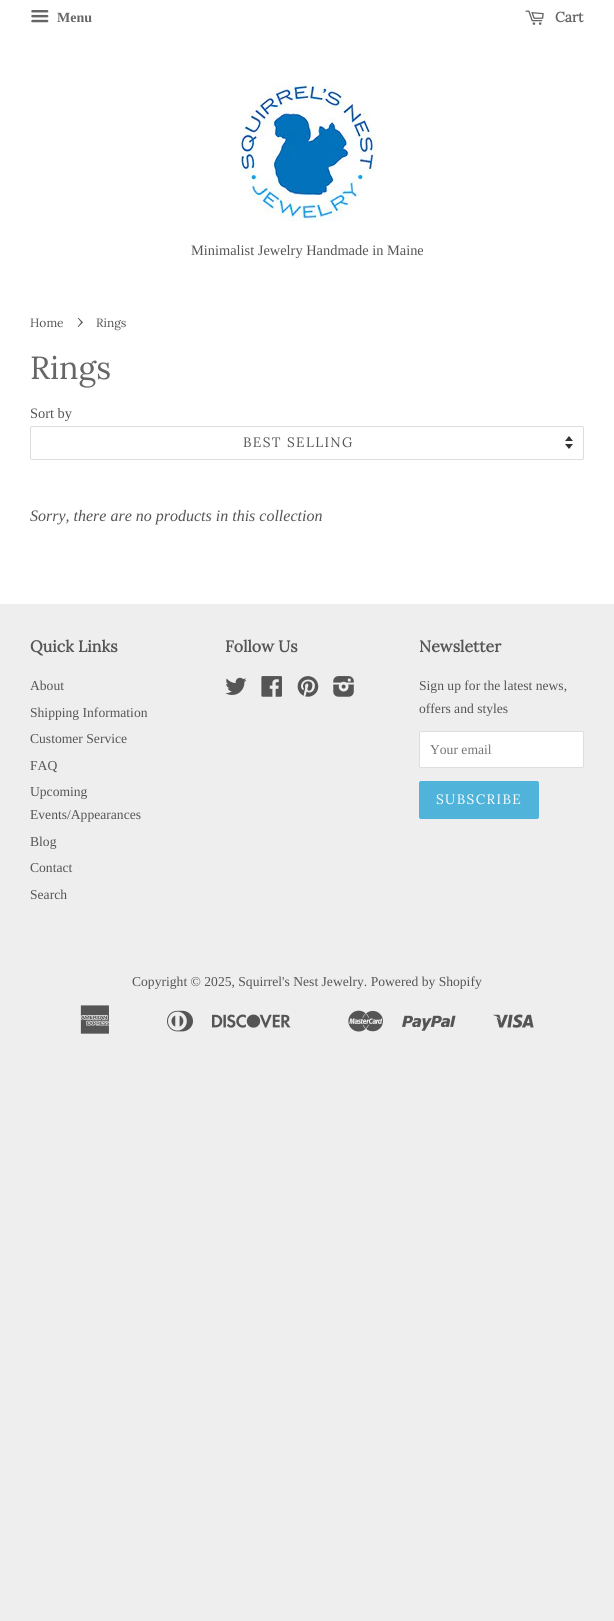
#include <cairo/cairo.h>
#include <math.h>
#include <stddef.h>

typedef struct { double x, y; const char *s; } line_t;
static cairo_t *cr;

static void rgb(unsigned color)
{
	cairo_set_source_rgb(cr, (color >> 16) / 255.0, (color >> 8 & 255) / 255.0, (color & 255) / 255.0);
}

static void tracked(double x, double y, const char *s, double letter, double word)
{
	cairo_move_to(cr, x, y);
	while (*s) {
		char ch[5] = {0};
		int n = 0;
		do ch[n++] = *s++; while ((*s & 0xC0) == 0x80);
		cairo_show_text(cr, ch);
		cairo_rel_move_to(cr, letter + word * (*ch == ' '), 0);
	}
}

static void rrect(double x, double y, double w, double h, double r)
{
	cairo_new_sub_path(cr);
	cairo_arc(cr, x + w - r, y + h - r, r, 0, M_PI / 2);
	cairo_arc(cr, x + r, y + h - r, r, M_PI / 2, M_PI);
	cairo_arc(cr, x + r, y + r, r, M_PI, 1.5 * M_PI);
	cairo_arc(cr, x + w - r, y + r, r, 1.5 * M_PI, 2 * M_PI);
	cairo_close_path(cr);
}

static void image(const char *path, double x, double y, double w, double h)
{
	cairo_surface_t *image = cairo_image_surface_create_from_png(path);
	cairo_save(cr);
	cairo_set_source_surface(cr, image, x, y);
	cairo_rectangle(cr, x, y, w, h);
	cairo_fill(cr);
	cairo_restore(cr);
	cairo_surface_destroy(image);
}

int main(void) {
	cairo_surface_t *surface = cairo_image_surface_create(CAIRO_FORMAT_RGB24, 614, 1621);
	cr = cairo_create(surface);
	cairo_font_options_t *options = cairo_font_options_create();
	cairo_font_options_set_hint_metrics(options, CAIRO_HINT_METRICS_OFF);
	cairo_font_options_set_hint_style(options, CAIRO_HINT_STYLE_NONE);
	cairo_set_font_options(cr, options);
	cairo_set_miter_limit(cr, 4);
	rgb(0xeeeeee);
	cairo_paint(cr);
	rgb(0xffffff);
	cairo_rectangle(cr, 0, 0, 614, 604);
	cairo_fill(cr);
	image("img/1.png", 31, 10, 18, 13);
	image("img/2.png", 525, 10, 19, 15);
	image("img/3.png", 240, 84, 136, 137);
	image("img/4.png", 565, 436, 8, 13);
	rrect(30.5, 426.5, 553, 33, 1.5);
	rgb(0xdddddd);
	cairo_set_line_width(cr, 1);
	cairo_stroke(cr);
	image("img/5.png", 225, 677, 22, 18);
	image("img/6.png", 261, 676, 21, 21);
	image("img/7.png", 297, 676, 22, 21);
	image("img/8.png", 333, 676, 21, 21);
	rgb(0xffffff);
	rrect(419.5, 731.5, 164, 36, 1.5);
	cairo_fill_preserve(cr);
	rgb(0xdddddd);
	cairo_stroke(cr);
	rgb(0x50b3da);
	rrect(419, 781, 120, 38, 2);
	cairo_fill(cr);
	image("img/9.png", 80, 1005, 30, 29);
	image("img/10.png", 167, 1010, 26, 22);
	image("img/11.png", 212, 1014, 79, 14);
	image("img/12.png", 348, 1010, 35, 22);
	image("img/13.png", 402, 1015, 54, 16);
	image("img/14.png", 493, 1014, 41, 14);
	cairo_select_font_face(cr, "Liberation Serif", CAIRO_FONT_SLANT_NORMAL, CAIRO_FONT_WEIGHT_BOLD);
	cairo_set_font_size(cr, 14);
	rgb(0x666666);
	cairo_move_to(cr, 57, 22);
	cairo_show_text(cr, "Menu");
	cairo_select_font_face(cr, "Lora", CAIRO_FONT_SLANT_NORMAL, CAIRO_FONT_WEIGHT_BOLD);
	cairo_move_to(cr, 555, 22);
	cairo_show_text(cr, "Cart");
	cairo_select_font_face(cr, "Liberation Serif", CAIRO_FONT_SLANT_NORMAL, CAIRO_FONT_WEIGHT_NORMAL);
	cairo_set_font_size(cr, 14.4);
	rgb(0x555555);
	cairo_move_to(cr, 191, 255);
	cairo_show_text(cr, "Minimalist Jewelry Handmade in Maine");
	cairo_select_font_face(cr, "Lora", CAIRO_FONT_SLANT_NORMAL, CAIRO_FONT_WEIGHT_NORMAL);
	cairo_set_font_size(cr, 12);
	cairo_move_to(cr, 30, 327);
	cairo_show_text(cr, "Home");
	cairo_set_font_size(cr, 17);
	cairo_move_to(cr, 77, 327);
	cairo_show_text(cr, "›");
	cairo_set_font_size(cr, 12);
	cairo_move_to(cr, 96, 327);
	cairo_show_text(cr, "Rings");
	cairo_set_font_size(cr, 32);
	rgb(0x666666);
	cairo_move_to(cr, 30, 379);
	cairo_show_text(cr, "Rings");
	cairo_select_font_face(cr, "Liberation Serif", CAIRO_FONT_SLANT_NORMAL, CAIRO_FONT_WEIGHT_NORMAL);
	cairo_set_font_size(cr, 14.4);
	rgb(0x555555);
	cairo_move_to(cr, 30, 418);
	cairo_show_text(cr, "Sort by");
	cairo_select_font_face(cr, "Lora", CAIRO_FONT_SLANT_NORMAL, CAIRO_FONT_WEIGHT_NORMAL);
	cairo_set_font_size(cr, 13.6);
	tracked(243, 447, "BEST SELLING", 1.4, 0);
	cairo_select_font_face(cr, "Liberation Serif", CAIRO_FONT_SLANT_ITALIC, CAIRO_FONT_WEIGHT_NORMAL);
	cairo_set_font_size(cr, 16);
	cairo_move_to(cr, 30, 521);
	cairo_show_text(cr, "Sorry, there are no products in this collection");
	cairo_select_font_face(cr, "Lora", CAIRO_FONT_SLANT_NORMAL, CAIRO_FONT_WEIGHT_BOLD);
	cairo_move_to(cr, 30, 652);
	cairo_show_text(cr, "Quick Links");
	cairo_select_font_face(cr, "Liberation Serif", CAIRO_FONT_SLANT_NORMAL, CAIRO_FONT_WEIGHT_NORMAL);
	cairo_set_font_size(cr, 13.6);
	{
		static const line_t items[] = {
			{30, 690, "About"},
			{30, 717, "Shipping Information"},
			{30, 743, "Customer Service"},
			{30, 770, "FAQ"},
			{30, 796, "Upcoming"},
			{30, 819, "Events/Appearances"},
			{30, 846, "Blog"},
			{30, 872, "Contact"},
			{30, 899, "Search"},
		};
		for (size_t i = 0; i < sizeof items / sizeof *items; i++) {
			cairo_move_to(cr, items[i].x, items[i].y);
			cairo_show_text(cr, items[i].s);
		}
	}
	cairo_select_font_face(cr, "Lora", CAIRO_FONT_SLANT_NORMAL, CAIRO_FONT_WEIGHT_BOLD);
	cairo_set_font_size(cr, 16);
	cairo_move_to(cr, 225, 652);
	cairo_show_text(cr, "Follow Us");
	cairo_move_to(cr, 419, 652);
	cairo_show_text(cr, "Newsletter");
	cairo_select_font_face(cr, "Liberation Serif", CAIRO_FONT_SLANT_NORMAL, CAIRO_FONT_WEIGHT_NORMAL);
	cairo_set_font_size(cr, 13.6);
	cairo_move_to(cr, 419, 690);
	cairo_show_text(cr, "Sign up for the latest news,");
	cairo_move_to(cr, 419, 713);
	cairo_show_text(cr, "offers and styles");
	rgb(0x757575);
	cairo_move_to(cr, 430, 754);
	cairo_show_text(cr, "Your email");
	cairo_select_font_face(cr, "Lora", CAIRO_FONT_SLANT_NORMAL, CAIRO_FONT_WEIGHT_NORMAL);
	rgb(0xffffff);
	tracked(436, 804, "SUBSCRIBE", 1.4, 0);
	cairo_select_font_face(cr, "Liberation Serif", CAIRO_FONT_SLANT_NORMAL, CAIRO_FONT_WEIGHT_NORMAL);
	rgb(0x555555);
	cairo_move_to(cr, 132, 986);
	cairo_show_text(cr, "Copyright © 2025, Squirrel's Nest Jewelry. Powered by Shopify");
	cairo_surface_write_to_png(surface, "page.png");
	cairo_font_options_destroy(options);
	cairo_destroy(cr);
	cairo_surface_destroy(surface);
	return 0;
}
